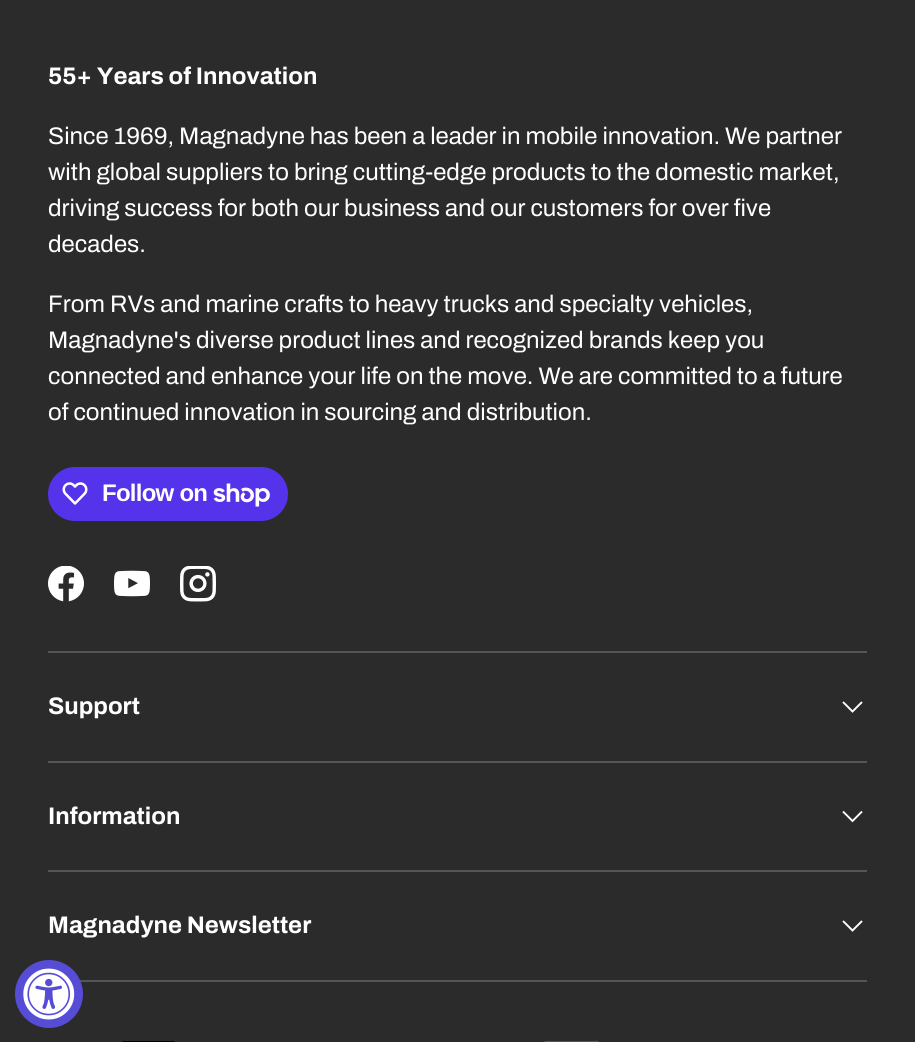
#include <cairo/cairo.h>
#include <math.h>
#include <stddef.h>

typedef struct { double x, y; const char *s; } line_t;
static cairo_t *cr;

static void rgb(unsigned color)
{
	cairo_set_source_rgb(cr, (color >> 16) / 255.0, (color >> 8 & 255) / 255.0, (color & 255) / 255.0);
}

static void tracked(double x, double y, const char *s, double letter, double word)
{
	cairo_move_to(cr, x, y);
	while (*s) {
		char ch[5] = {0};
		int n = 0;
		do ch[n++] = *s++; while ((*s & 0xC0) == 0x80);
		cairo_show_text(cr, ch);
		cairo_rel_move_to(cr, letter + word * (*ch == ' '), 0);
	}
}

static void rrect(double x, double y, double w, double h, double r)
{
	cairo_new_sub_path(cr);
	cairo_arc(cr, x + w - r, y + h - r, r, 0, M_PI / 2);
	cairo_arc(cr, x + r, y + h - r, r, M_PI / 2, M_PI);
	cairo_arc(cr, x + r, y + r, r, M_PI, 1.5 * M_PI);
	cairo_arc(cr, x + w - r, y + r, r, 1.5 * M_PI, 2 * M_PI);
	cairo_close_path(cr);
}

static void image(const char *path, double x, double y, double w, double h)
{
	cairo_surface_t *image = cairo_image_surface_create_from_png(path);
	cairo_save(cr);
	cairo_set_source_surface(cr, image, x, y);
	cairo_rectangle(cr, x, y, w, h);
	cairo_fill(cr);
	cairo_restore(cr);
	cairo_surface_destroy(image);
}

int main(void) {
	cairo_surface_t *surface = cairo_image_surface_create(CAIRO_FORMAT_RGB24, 915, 1042);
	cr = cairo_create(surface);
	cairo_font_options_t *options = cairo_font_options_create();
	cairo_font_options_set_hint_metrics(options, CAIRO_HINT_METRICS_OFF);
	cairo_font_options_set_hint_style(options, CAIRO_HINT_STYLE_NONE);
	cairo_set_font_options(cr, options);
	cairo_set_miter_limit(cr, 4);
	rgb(0x2a2b2a);
	cairo_paint(cr);
	rgb(0x5433eb);
	rrect(48, 467, 240, 54, 27);
	cairo_fill(cr);
	image("img/1.png", 62, 482, 26, 23);
	image("img/2.png", 213, 483, 57, 24);
	image("img/3.png", 48, 566, 36, 36);
	image("img/4.png", 114, 570, 36, 27);
	image("img/5.png", 180, 566, 36, 36);
	rgb(0x555555);
	cairo_rectangle(cr, 48, 651, 819, 2);
	cairo_fill(cr);
	cairo_rectangle(cr, 48, 761, 819, 2);
	cairo_fill(cr);
	cairo_new_path(cr);
	cairo_move_to(cr, 862, 702);
	cairo_line_to(cr, 852.5, 711.5);
	cairo_line_to(cr, 843, 702);
	rgb(0xffffff);
	cairo_set_line_width(cr, 1.9);
	cairo_stroke(cr);
	rgb(0x555555);
	cairo_rectangle(cr, 48, 870, 819, 2);
	cairo_fill(cr);
	cairo_new_path(cr);
	cairo_move_to(cr, 862, 811.5);
	cairo_line_to(cr, 852.5, 821);
	cairo_line_to(cr, 843, 811.5);
	rgb(0xffffff);
	cairo_stroke(cr);
	rgb(0x555555);
	cairo_rectangle(cr, 80, 980, 787, 2);
	cairo_fill(cr);
	cairo_new_path(cr);
	cairo_move_to(cr, 862, 921);
	cairo_line_to(cr, 852.5, 930.5);
	cairo_line_to(cr, 843, 921);
	rgb(0xffffff);
	cairo_stroke(cr);
	image("img/6.png", 122, 1041, 53, 1);
	image("img/7.png", 544, 1041, 55, 1);
	rgb(0x574cd5);
	cairo_arc(cr, 49, 994, 34, 0, 2 * M_PI);
	cairo_fill(cr);
	image("img/8.png", 23, 968, 52, 52);
	cairo_select_font_face(cr, "Archivo", CAIRO_FONT_SLANT_NORMAL, CAIRO_FONT_WEIGHT_BOLD);
	cairo_set_font_size(cr, 24);
	rgb(0xffffff);
	cairo_move_to(cr, 48, 84);
	cairo_show_text(cr, "55+ Years of Innovation");
	cairo_select_font_face(cr, "Archivo", CAIRO_FONT_SLANT_NORMAL, CAIRO_FONT_WEIGHT_NORMAL);
	{
		static const line_t items[] = {
			{48, 144, "Since 1969, Magnadyne has been a leader in mobile innovation. We partner"},
			{48, 180, "with global suppliers to bring cutting-edge products to the domestic market,"},
			{48, 216, "driving success for both our business and our customers for over five"},
			{48, 252, "decades."},
			{48, 312, "From RVs and marine crafts to heavy trucks and specialty vehicles,"},
			{48, 348, "Magnadyne's diverse product lines and recognized brands keep you"},
			{48, 384, "connected and enhance your life on the move. We are committed to a future"},
			{48, 420, "of continued innovation in sourcing and distribution."},
		};
		for (size_t i = 0; i < sizeof items / sizeof *items; i++) {
			cairo_move_to(cr, items[i].x, items[i].y);
			cairo_show_text(cr, items[i].s);
		}
	}
	cairo_select_font_face(cr, "Liberation Sans", CAIRO_FONT_SLANT_NORMAL, CAIRO_FONT_WEIGHT_BOLD);
	tracked(102, 501, "Follow on", -0.75, 0);
	cairo_select_font_face(cr, "Archivo", CAIRO_FONT_SLANT_NORMAL, CAIRO_FONT_WEIGHT_BOLD);
	{
		static const line_t items[] = {
			{48, 714, "Support"},
			{48, 824, "Information"},
			{48, 933, "Magnadyne Newsletter"},
		};
		for (size_t i = 0; i < sizeof items / sizeof *items; i++) {
			cairo_move_to(cr, items[i].x, items[i].y);
			cairo_show_text(cr, items[i].s);
		}
	}
	cairo_surface_write_to_png(surface, "page.png");
	cairo_font_options_destroy(options);
	cairo_destroy(cr);
	cairo_surface_destroy(surface);
	return 0;
}
